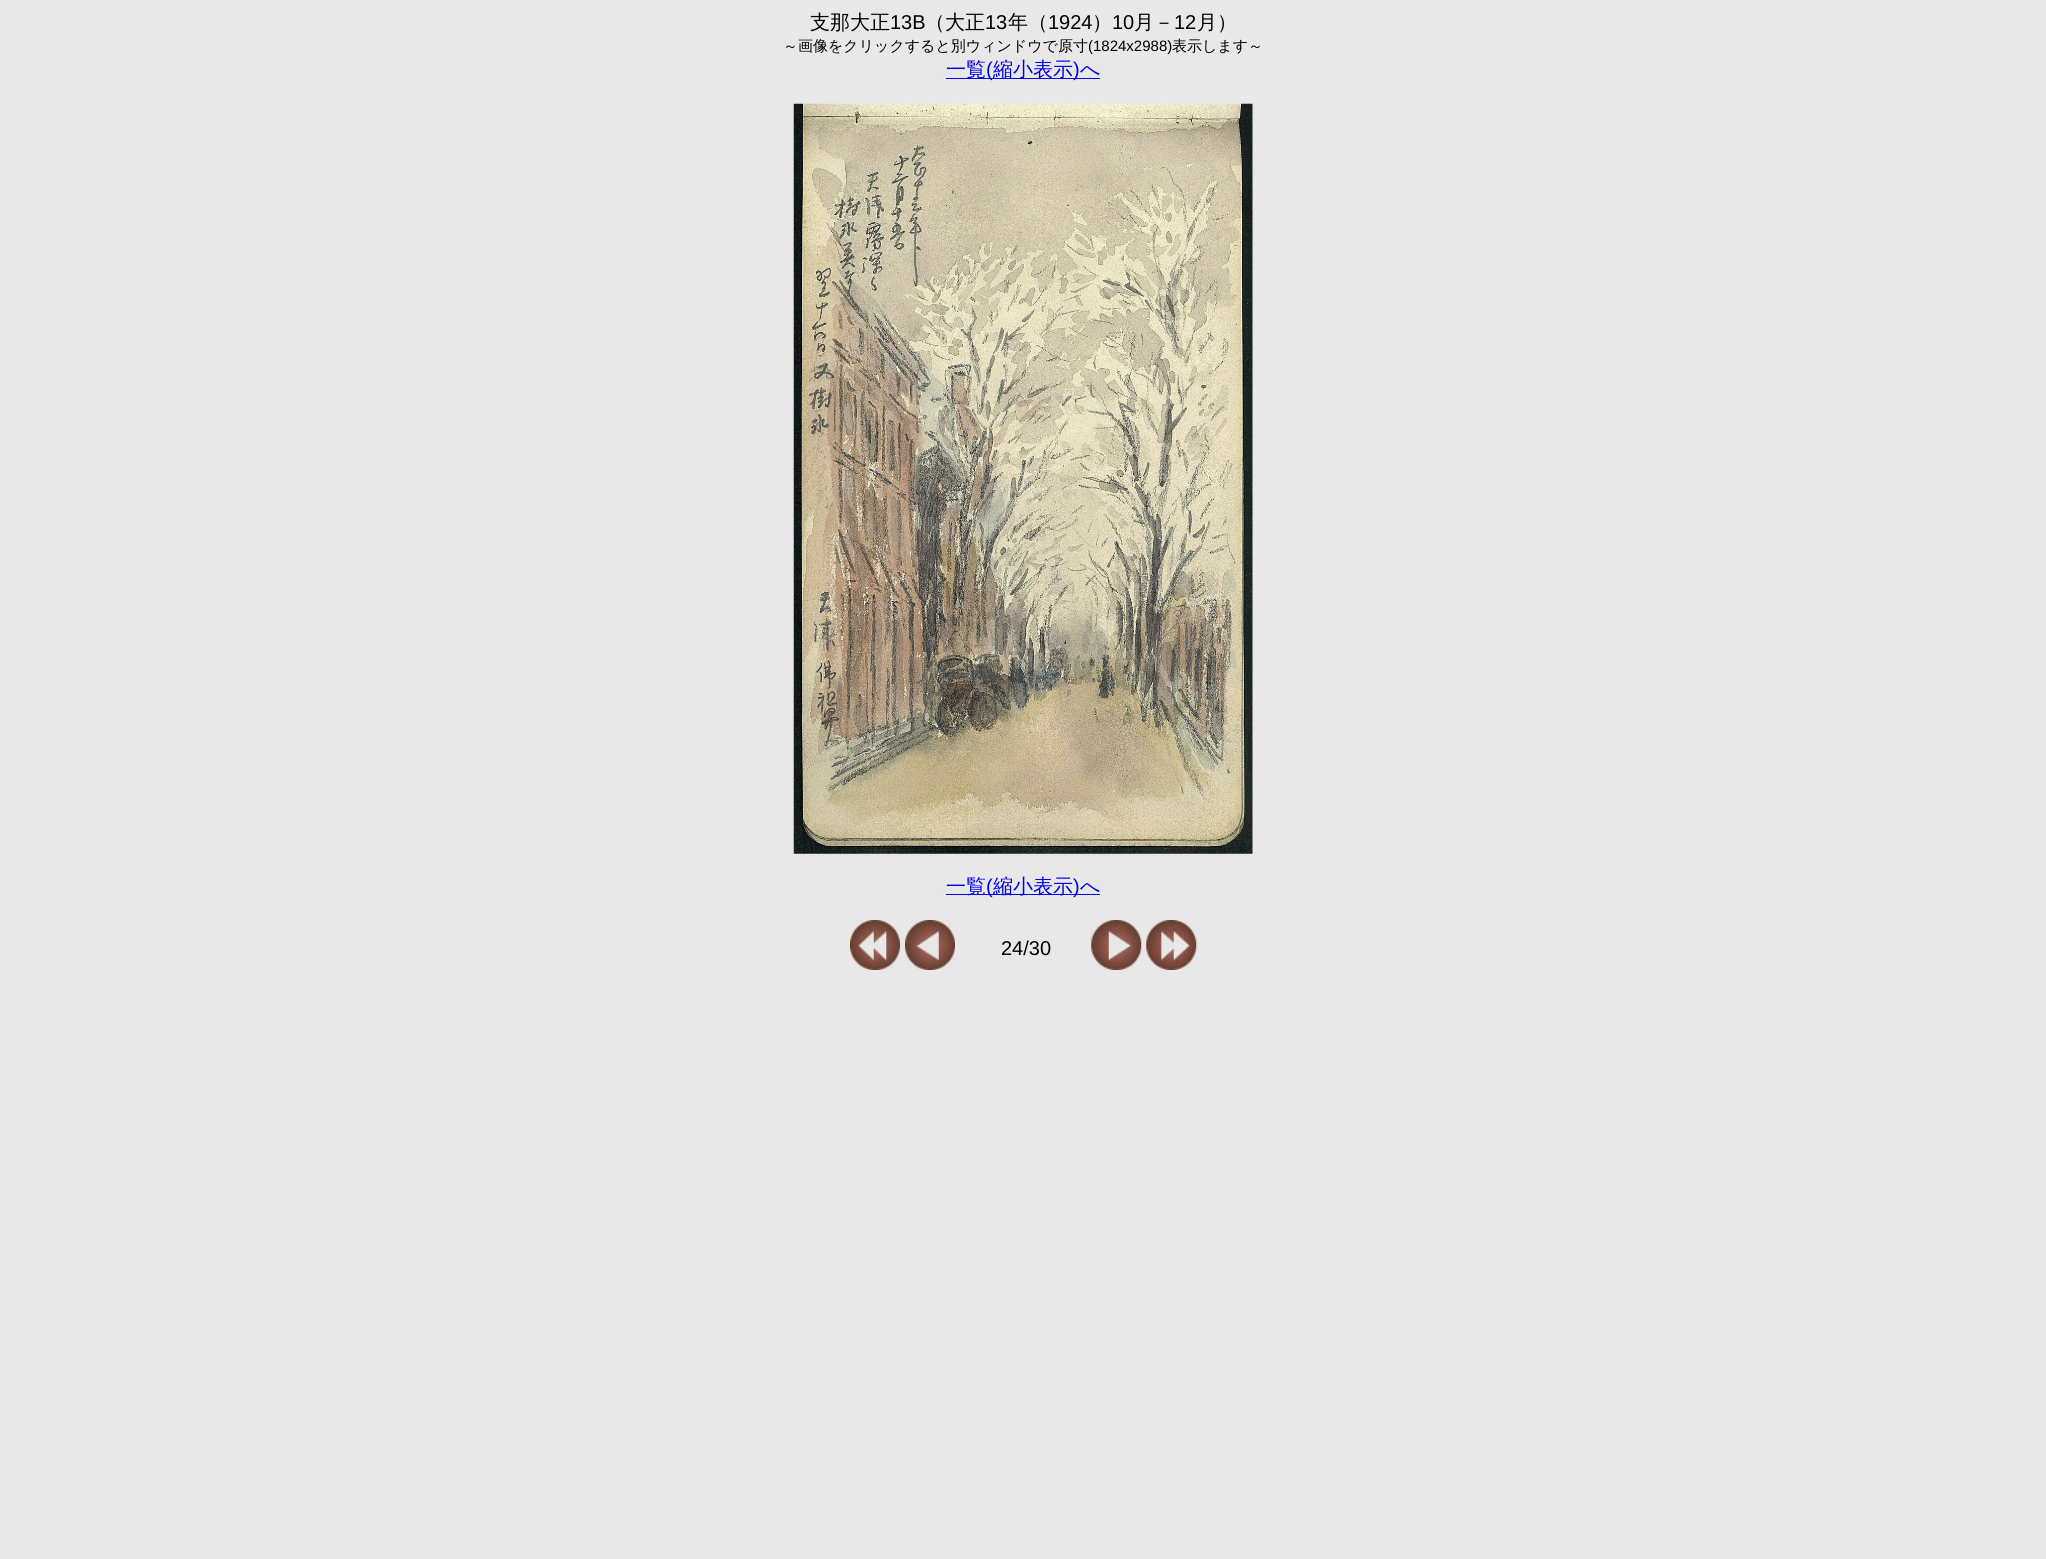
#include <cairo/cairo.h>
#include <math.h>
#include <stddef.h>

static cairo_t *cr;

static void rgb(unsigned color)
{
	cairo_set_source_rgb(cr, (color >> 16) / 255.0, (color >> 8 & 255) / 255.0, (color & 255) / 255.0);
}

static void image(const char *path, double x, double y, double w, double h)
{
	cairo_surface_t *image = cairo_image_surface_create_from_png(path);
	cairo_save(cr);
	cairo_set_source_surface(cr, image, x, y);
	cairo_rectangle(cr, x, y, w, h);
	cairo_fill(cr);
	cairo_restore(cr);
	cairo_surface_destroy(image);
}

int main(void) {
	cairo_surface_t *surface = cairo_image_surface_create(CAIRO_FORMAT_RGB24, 2046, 1559);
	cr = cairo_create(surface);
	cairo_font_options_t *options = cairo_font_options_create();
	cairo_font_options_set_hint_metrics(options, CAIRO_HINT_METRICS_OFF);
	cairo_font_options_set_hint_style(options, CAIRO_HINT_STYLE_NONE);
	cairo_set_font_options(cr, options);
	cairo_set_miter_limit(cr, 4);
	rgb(0xe8e8e8);
	cairo_paint(cr);
	rgb(0x0000ee);
	cairo_rectangle(cr, 946, 78, 154, 1);
	cairo_fill(cr);
	image("img/1.png", 793, 103, 460, 751);
	cairo_rectangle(cr, 946, 894, 154, 1);
	cairo_fill(cr);
	image("img/2.png", 850, 920, 50, 50);
	image("img/3.png", 905, 920, 50, 50);
	image("img/4.png", 1091, 920, 51, 50);
	image("img/5.png", 1146, 920, 51, 50);
	cairo_select_font_face(cr, "WenQuanYi Zen Hei Medium", CAIRO_FONT_SLANT_NORMAL, CAIRO_FONT_WEIGHT_NORMAL);
	cairo_set_font_size(cr, 20);
	rgb(0x000000);
	cairo_move_to(cr, 810, 29);
	cairo_show_text(cr, "支那大正");
	cairo_select_font_face(cr, "Liberation Sans", CAIRO_FONT_SLANT_NORMAL, CAIRO_FONT_WEIGHT_NORMAL);
	cairo_move_to(cr, 890, 29);
	cairo_show_text(cr, "13B");
	cairo_select_font_face(cr, "WenQuanYi Zen Hei Medium", CAIRO_FONT_SLANT_NORMAL, CAIRO_FONT_WEIGHT_NORMAL);
	cairo_move_to(cr, 925, 29);
	cairo_show_text(cr, "（大正");
	cairo_select_font_face(cr, "Liberation Sans", CAIRO_FONT_SLANT_NORMAL, CAIRO_FONT_WEIGHT_NORMAL);
	cairo_move_to(cr, 985, 29);
	cairo_show_text(cr, "13");
	cairo_select_font_face(cr, "WenQuanYi Zen Hei Medium", CAIRO_FONT_SLANT_NORMAL, CAIRO_FONT_WEIGHT_NORMAL);
	cairo_move_to(cr, 1008, 29);
	cairo_show_text(cr, "年（");
	cairo_select_font_face(cr, "Liberation Sans", CAIRO_FONT_SLANT_NORMAL, CAIRO_FONT_WEIGHT_NORMAL);
	cairo_move_to(cr, 1048, 29);
	cairo_show_text(cr, "1924");
	cairo_select_font_face(cr, "WenQuanYi Zen Hei Medium", CAIRO_FONT_SLANT_NORMAL, CAIRO_FONT_WEIGHT_NORMAL);
	cairo_move_to(cr, 1092, 29);
	cairo_show_text(cr, "）");
	cairo_select_font_face(cr, "Liberation Sans", CAIRO_FONT_SLANT_NORMAL, CAIRO_FONT_WEIGHT_NORMAL);
	cairo_move_to(cr, 1112, 29);
	cairo_show_text(cr, "10");
	cairo_select_font_face(cr, "WenQuanYi Zen Hei Medium", CAIRO_FONT_SLANT_NORMAL, CAIRO_FONT_WEIGHT_NORMAL);
	cairo_move_to(cr, 1134, 29);
	cairo_show_text(cr, "月－");
	cairo_select_font_face(cr, "Liberation Sans", CAIRO_FONT_SLANT_NORMAL, CAIRO_FONT_WEIGHT_NORMAL);
	cairo_move_to(cr, 1174, 29);
	cairo_show_text(cr, "12");
	cairo_select_font_face(cr, "WenQuanYi Zen Hei Medium", CAIRO_FONT_SLANT_NORMAL, CAIRO_FONT_WEIGHT_NORMAL);
	cairo_move_to(cr, 1197, 29);
	cairo_show_text(cr, "月）");
	cairo_set_font_size(cr, 15);
	cairo_move_to(cr, 783, 51);
	cairo_show_text(cr, "～画像をクリックすると別ウィンドウで原寸");
	cairo_select_font_face(cr, "Liberation Sans", CAIRO_FONT_SLANT_NORMAL, CAIRO_FONT_WEIGHT_NORMAL);
	cairo_move_to(cr, 1088, 51);
	cairo_show_text(cr, "(1824x2988)");
	cairo_select_font_face(cr, "WenQuanYi Zen Hei Medium", CAIRO_FONT_SLANT_NORMAL, CAIRO_FONT_WEIGHT_NORMAL);
	cairo_move_to(cr, 1172, 51);
	cairo_show_text(cr, "表示します～");
	cairo_set_font_size(cr, 20);
	rgb(0x0000ee);
	cairo_move_to(cr, 946, 76);
	cairo_show_text(cr, "一覧");
	cairo_select_font_face(cr, "Liberation Sans", CAIRO_FONT_SLANT_NORMAL, CAIRO_FONT_WEIGHT_NORMAL);
	cairo_move_to(cr, 986, 76);
	cairo_show_text(cr, "(");
	cairo_select_font_face(cr, "WenQuanYi Zen Hei Medium", CAIRO_FONT_SLANT_NORMAL, CAIRO_FONT_WEIGHT_NORMAL);
	cairo_move_to(cr, 993, 76);
	cairo_show_text(cr, "縮小表示");
	cairo_select_font_face(cr, "Liberation Sans", CAIRO_FONT_SLANT_NORMAL, CAIRO_FONT_WEIGHT_NORMAL);
	cairo_move_to(cr, 1073, 76);
	cairo_show_text(cr, ")");
	cairo_select_font_face(cr, "WenQuanYi Zen Hei Medium", CAIRO_FONT_SLANT_NORMAL, CAIRO_FONT_WEIGHT_NORMAL);
	cairo_move_to(cr, 1080, 76);
	cairo_show_text(cr, "へ");
	cairo_move_to(cr, 946, 893);
	cairo_show_text(cr, "一覧");
	cairo_select_font_face(cr, "Liberation Sans", CAIRO_FONT_SLANT_NORMAL, CAIRO_FONT_WEIGHT_NORMAL);
	cairo_move_to(cr, 986, 893);
	cairo_show_text(cr, "(");
	cairo_select_font_face(cr, "WenQuanYi Zen Hei Medium", CAIRO_FONT_SLANT_NORMAL, CAIRO_FONT_WEIGHT_NORMAL);
	cairo_move_to(cr, 993, 893);
	cairo_show_text(cr, "縮小表示");
	cairo_select_font_face(cr, "Liberation Sans", CAIRO_FONT_SLANT_NORMAL, CAIRO_FONT_WEIGHT_NORMAL);
	cairo_move_to(cr, 1073, 893);
	cairo_show_text(cr, ")");
	cairo_select_font_face(cr, "WenQuanYi Zen Hei Medium", CAIRO_FONT_SLANT_NORMAL, CAIRO_FONT_WEIGHT_NORMAL);
	cairo_move_to(cr, 1080, 893);
	cairo_show_text(cr, "へ");
	cairo_select_font_face(cr, "Liberation Sans", CAIRO_FONT_SLANT_NORMAL, CAIRO_FONT_WEIGHT_NORMAL);
	rgb(0x000000);
	cairo_move_to(cr, 1001, 955);
	cairo_show_text(cr, "24/30");
	cairo_surface_write_to_png(surface, "page.png");
	cairo_font_options_destroy(options);
	cairo_destroy(cr);
	cairo_surface_destroy(surface);
	return 0;
}
